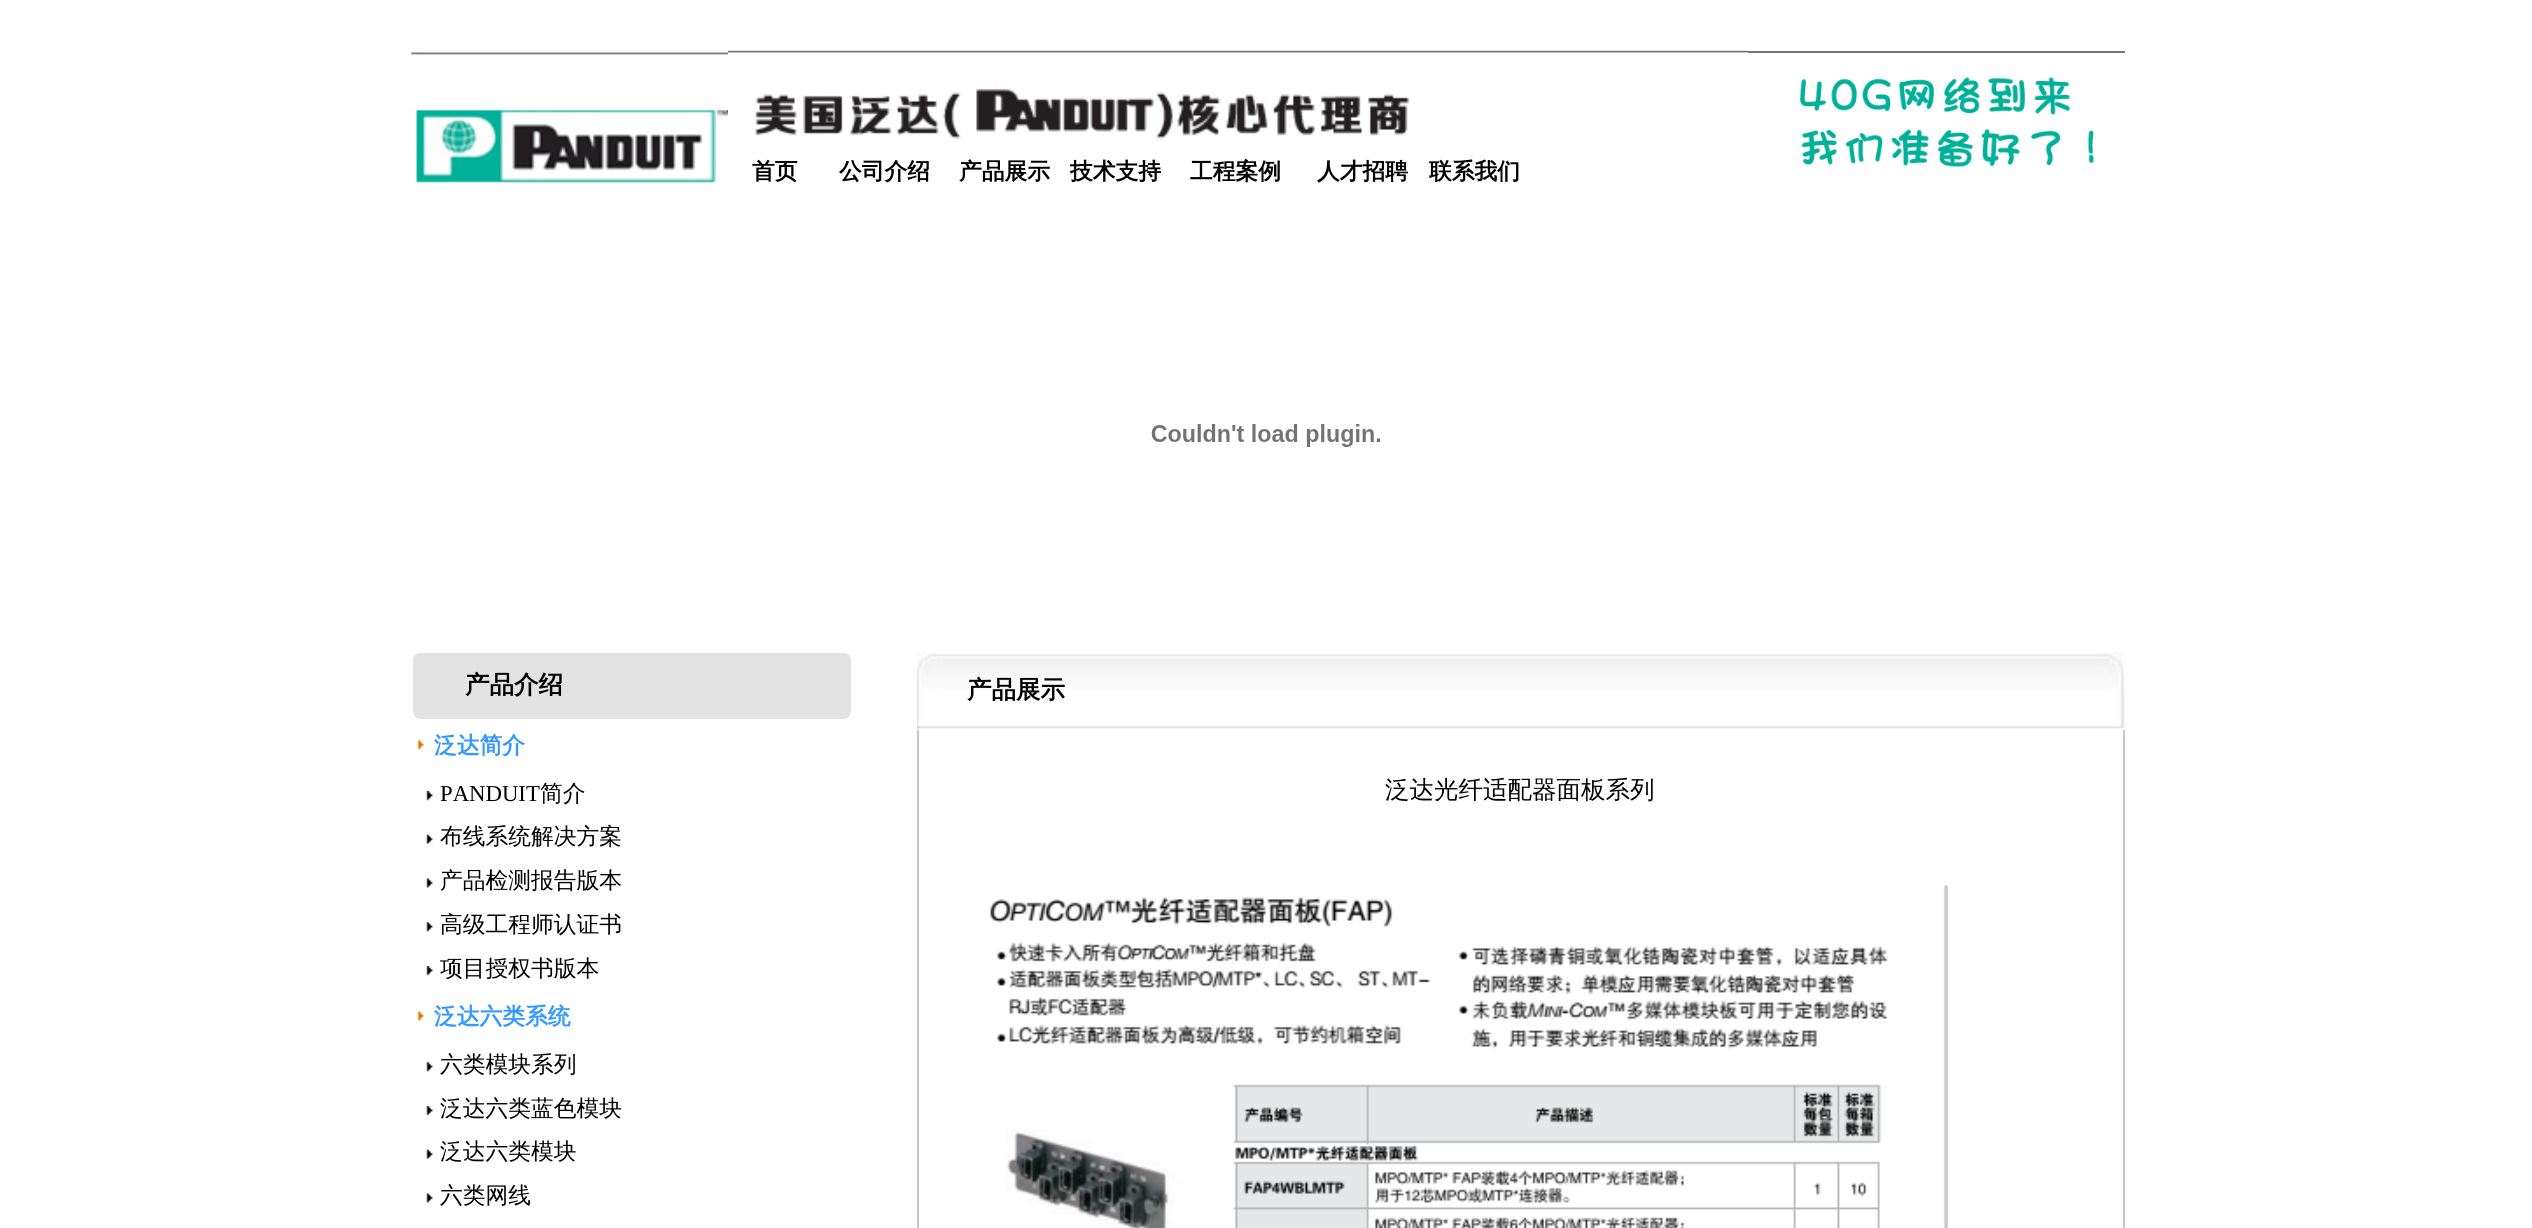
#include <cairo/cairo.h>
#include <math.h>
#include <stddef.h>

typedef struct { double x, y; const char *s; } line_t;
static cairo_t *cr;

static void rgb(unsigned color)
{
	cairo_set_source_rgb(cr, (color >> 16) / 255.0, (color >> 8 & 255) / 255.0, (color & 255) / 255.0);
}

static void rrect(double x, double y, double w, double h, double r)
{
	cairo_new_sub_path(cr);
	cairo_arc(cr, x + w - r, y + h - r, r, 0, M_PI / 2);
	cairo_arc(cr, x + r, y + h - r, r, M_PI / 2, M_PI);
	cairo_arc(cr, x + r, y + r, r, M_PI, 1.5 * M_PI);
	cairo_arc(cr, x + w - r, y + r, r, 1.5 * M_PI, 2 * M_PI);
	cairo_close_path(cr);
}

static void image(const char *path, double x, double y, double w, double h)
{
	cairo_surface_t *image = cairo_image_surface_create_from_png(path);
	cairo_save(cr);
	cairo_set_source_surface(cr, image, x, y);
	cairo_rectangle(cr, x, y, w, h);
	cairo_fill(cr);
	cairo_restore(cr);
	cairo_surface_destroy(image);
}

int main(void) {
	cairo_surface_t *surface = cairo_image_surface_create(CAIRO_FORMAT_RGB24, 2532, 1228);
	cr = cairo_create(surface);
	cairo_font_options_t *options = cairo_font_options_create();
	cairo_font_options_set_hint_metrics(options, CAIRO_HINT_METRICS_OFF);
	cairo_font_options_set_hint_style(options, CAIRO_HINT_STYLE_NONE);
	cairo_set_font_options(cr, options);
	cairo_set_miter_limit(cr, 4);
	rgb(0xffffff);
	cairo_paint(cr);
	image("img/1.png", 410, 52, 318, 131);
	image("img/2.png", 728, 50, 1021, 89);
	rgb(0x757678);
	cairo_rectangle(cr, 1748, 51, 377, 2);
	cairo_fill(cr);
	image("img/3.png", 1799, 77, 295, 90);
	image("img/4.png", 1151, 424, 230, 23);
	rgb(0xe3e3e3);
	rrect(413, 653, 438, 66, 7);
	cairo_fill(cr);
	image("img/5.png", 413, 737, 15, 15);
	image("img/6.png", 426, 791, 7, 10);
	image("img/7.png", 426, 834, 7, 10);
	image("img/8.png", 426, 878, 7, 10);
	image("img/9.png", 426, 922, 7, 10);
	image("img/6.png", 426, 966, 7, 10);
	image("img/10.png", 413, 1008, 15, 15);
	image("img/9.png", 426, 1062, 7, 10);
	image("img/6.png", 426, 1106, 7, 10);
	image("img/7.png", 426, 1149, 7, 10);
	image("img/8.png", 426, 1193, 7, 10);
	image("img/12.png", 941, 653, 1154, 76);
	image("img/11.png", 917, 653, 25, 77);
	image("img/13.png", 2095, 653, 30, 76);
	rgb(0xc3cbc3);
	cairo_rectangle(cr, 2123, 730, 2, 498);
	cairo_fill(cr);
	cairo_rectangle(cr, 917, 730, 2, 498);
	cairo_fill(cr);
	image("img/14.png", 989, 885, 959, 343);
	cairo_select_font_face(cr, "WenQuanYi Zen Hei", CAIRO_FONT_SLANT_NORMAL, CAIRO_FONT_WEIGHT_BOLD);
	cairo_set_font_size(cr, 22.75);
	rgb(0x000000);
	{
		static const line_t items[] = {
			{752, 179, "首页"},
			{839, 179, "公司介绍"},
			{959, 179, "产品展示"},
			{1070, 179, "技术支持"},
			{1190, 179, "工程案例"},
			{1317, 179, "人才招聘"},
			{1429, 179, "联系我们"},
		};
		for (size_t i = 0; i < sizeof items / sizeof *items; i++) {
			cairo_move_to(cr, items[i].x, items[i].y);
			cairo_show_text(cr, items[i].s);
		}
	}
	cairo_set_font_size(cr, 24.5);
	cairo_move_to(cr, 465, 693);
	cairo_show_text(cr, "产品介绍");
	cairo_set_font_size(cr, 22.75);
	rgb(0x3399ff);
	cairo_move_to(cr, 434, 753);
	cairo_show_text(cr, "泛达简介");
	cairo_select_font_face(cr, "Liberation Serif", CAIRO_FONT_SLANT_NORMAL, CAIRO_FONT_WEIGHT_NORMAL);
	rgb(0x000000);
	cairo_move_to(cr, 440, 801);
	cairo_show_text(cr, "PANDUIT");
	cairo_select_font_face(cr, "WenQuanYi Zen Hei Medium", CAIRO_FONT_SLANT_NORMAL, CAIRO_FONT_WEIGHT_NORMAL);
	{
		static const line_t items[] = {
			{540, 801, "简介"},
			{440, 844, "布线系统解决方案"},
			{440, 888, "产品检测报告版本"},
			{440, 932, "高级工程师认证书"},
			{440, 976, "项目授权书版本"},
		};
		for (size_t i = 0; i < sizeof items / sizeof *items; i++) {
			cairo_move_to(cr, items[i].x, items[i].y);
			cairo_show_text(cr, items[i].s);
		}
	}
	cairo_select_font_face(cr, "WenQuanYi Zen Hei", CAIRO_FONT_SLANT_NORMAL, CAIRO_FONT_WEIGHT_BOLD);
	rgb(0x3399ff);
	cairo_move_to(cr, 434, 1024);
	cairo_show_text(cr, "泛达六类系统");
	cairo_select_font_face(cr, "WenQuanYi Zen Hei Medium", CAIRO_FONT_SLANT_NORMAL, CAIRO_FONT_WEIGHT_NORMAL);
	rgb(0x000000);
	{
		static const line_t items[] = {
			{440, 1072, "六类模块系列"},
			{440, 1116, "泛达六类蓝色模块"},
			{440, 1159, "泛达六类模块"},
			{440, 1203, "六类网线"},
		};
		for (size_t i = 0; i < sizeof items / sizeof *items; i++) {
			cairo_move_to(cr, items[i].x, items[i].y);
			cairo_show_text(cr, items[i].s);
		}
	}
	cairo_select_font_face(cr, "WenQuanYi Zen Hei", CAIRO_FONT_SLANT_NORMAL, CAIRO_FONT_WEIGHT_BOLD);
	cairo_set_font_size(cr, 24.5);
	cairo_move_to(cr, 967, 698);
	cairo_show_text(cr, "产品展示");
	cairo_select_font_face(cr, "WenQuanYi Zen Hei Medium", CAIRO_FONT_SLANT_NORMAL, CAIRO_FONT_WEIGHT_NORMAL);
	cairo_move_to(cr, 1385, 798);
	cairo_show_text(cr, "泛达光纤适配器面板系列");
	cairo_surface_write_to_png(surface, "page.png");
	cairo_font_options_destroy(options);
	cairo_destroy(cr);
	cairo_surface_destroy(surface);
	return 0;
}
